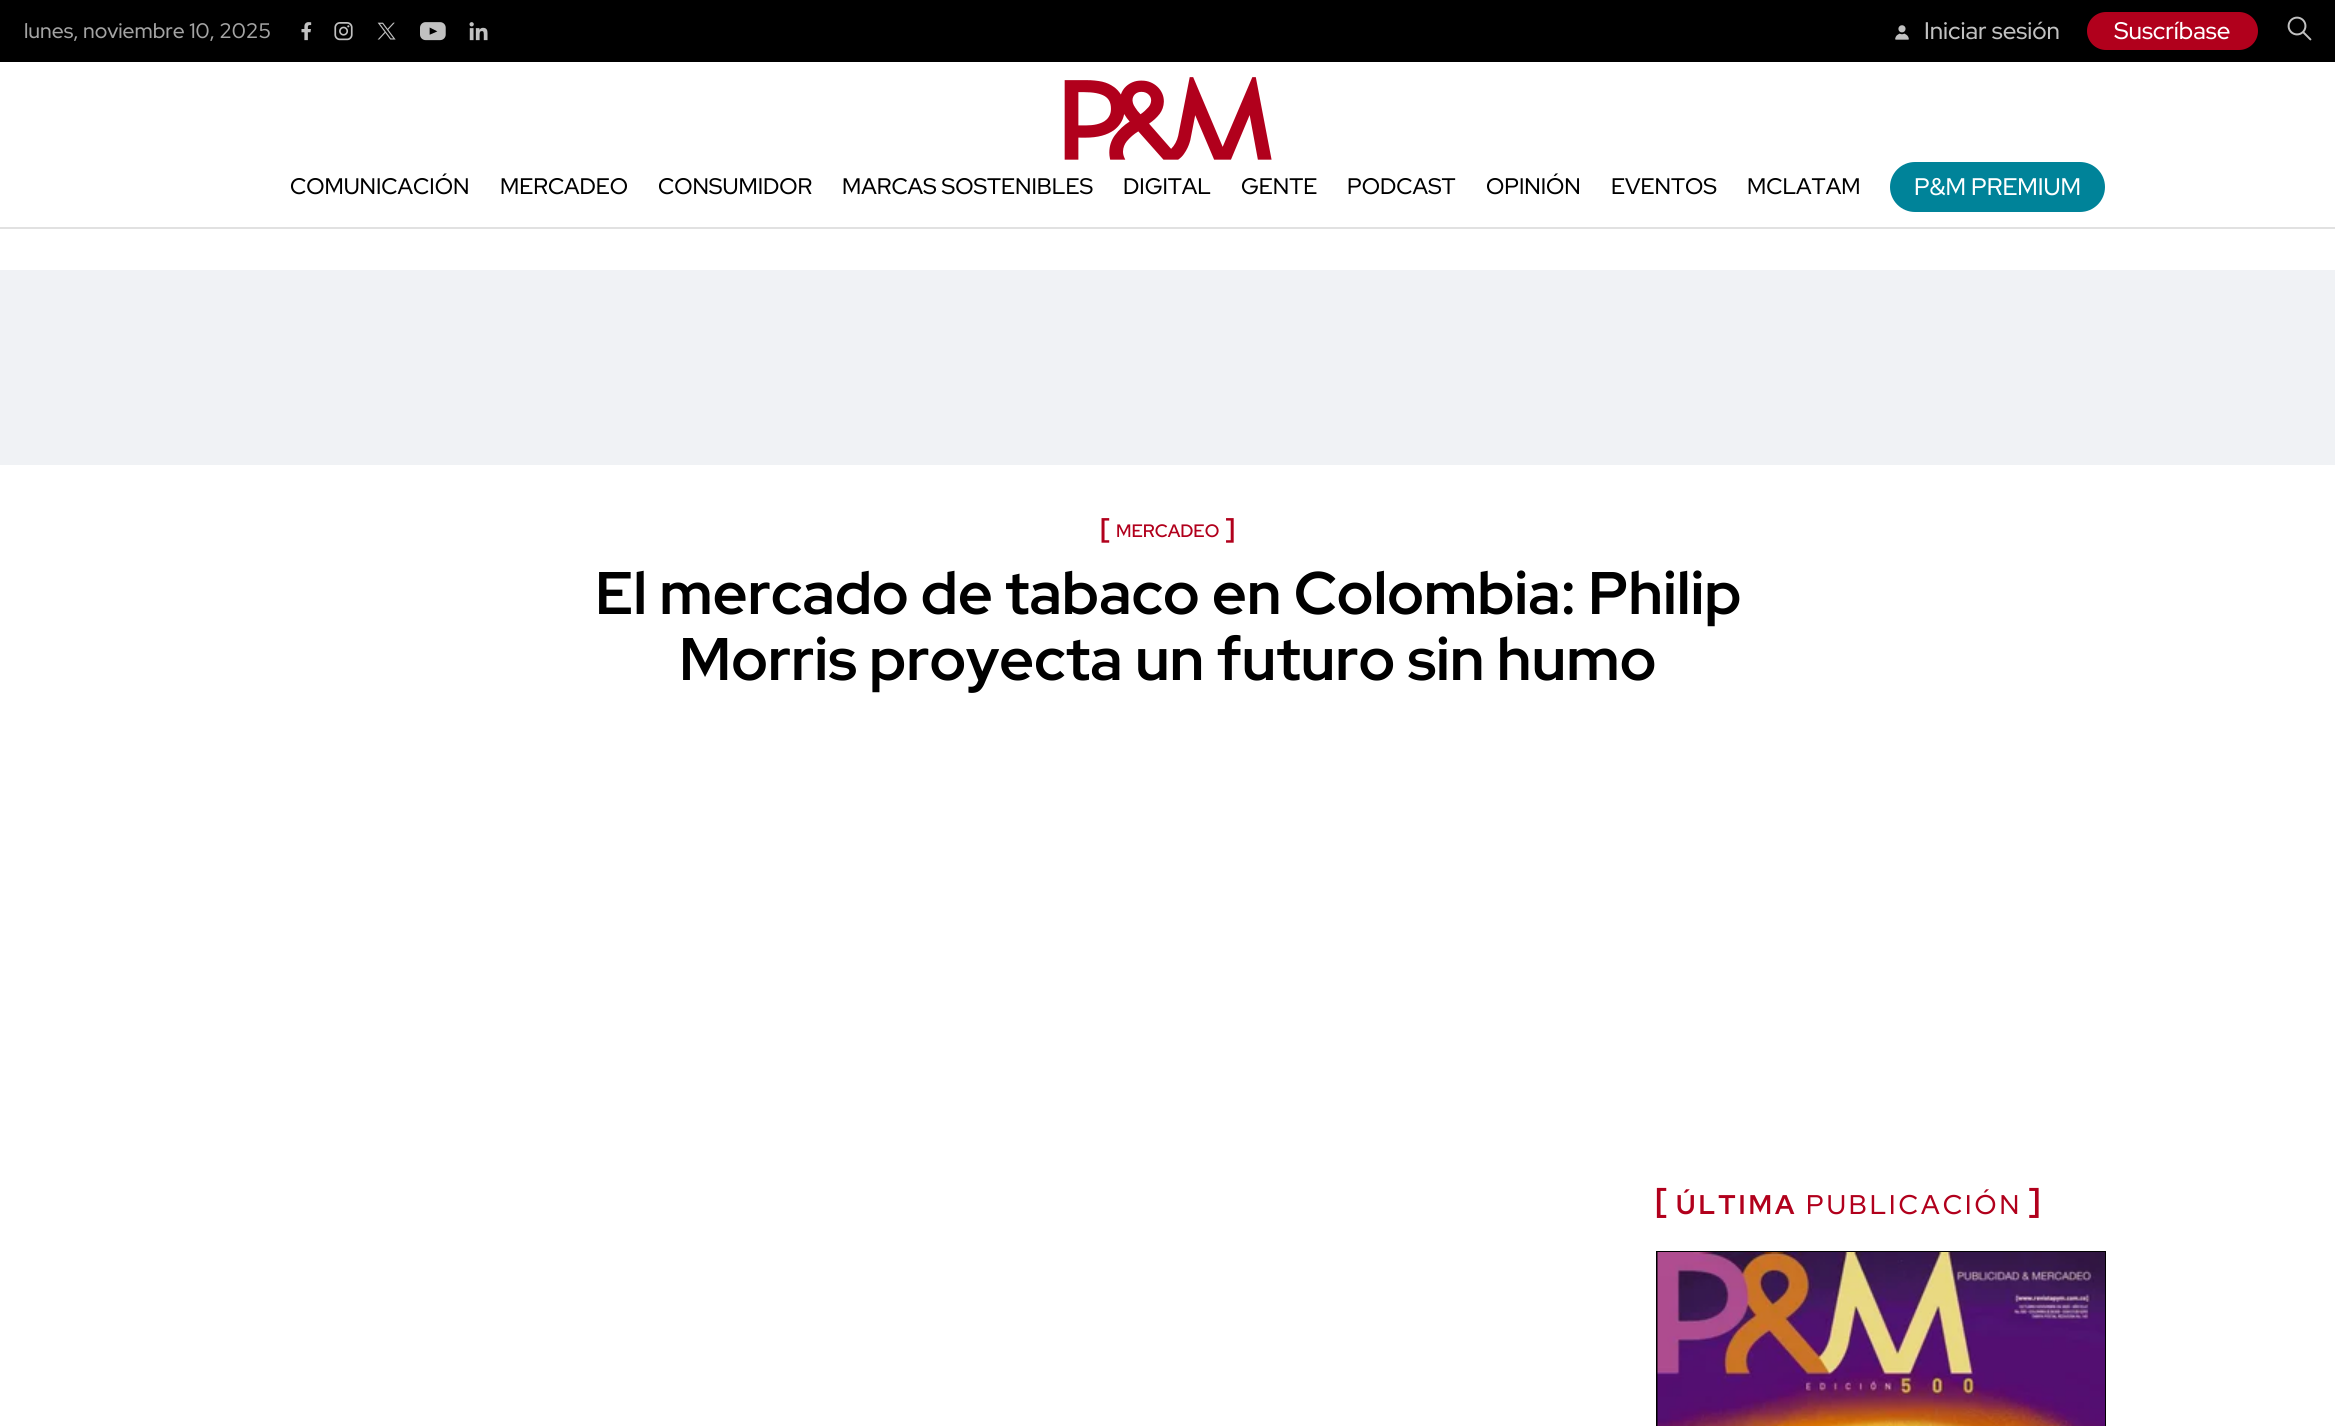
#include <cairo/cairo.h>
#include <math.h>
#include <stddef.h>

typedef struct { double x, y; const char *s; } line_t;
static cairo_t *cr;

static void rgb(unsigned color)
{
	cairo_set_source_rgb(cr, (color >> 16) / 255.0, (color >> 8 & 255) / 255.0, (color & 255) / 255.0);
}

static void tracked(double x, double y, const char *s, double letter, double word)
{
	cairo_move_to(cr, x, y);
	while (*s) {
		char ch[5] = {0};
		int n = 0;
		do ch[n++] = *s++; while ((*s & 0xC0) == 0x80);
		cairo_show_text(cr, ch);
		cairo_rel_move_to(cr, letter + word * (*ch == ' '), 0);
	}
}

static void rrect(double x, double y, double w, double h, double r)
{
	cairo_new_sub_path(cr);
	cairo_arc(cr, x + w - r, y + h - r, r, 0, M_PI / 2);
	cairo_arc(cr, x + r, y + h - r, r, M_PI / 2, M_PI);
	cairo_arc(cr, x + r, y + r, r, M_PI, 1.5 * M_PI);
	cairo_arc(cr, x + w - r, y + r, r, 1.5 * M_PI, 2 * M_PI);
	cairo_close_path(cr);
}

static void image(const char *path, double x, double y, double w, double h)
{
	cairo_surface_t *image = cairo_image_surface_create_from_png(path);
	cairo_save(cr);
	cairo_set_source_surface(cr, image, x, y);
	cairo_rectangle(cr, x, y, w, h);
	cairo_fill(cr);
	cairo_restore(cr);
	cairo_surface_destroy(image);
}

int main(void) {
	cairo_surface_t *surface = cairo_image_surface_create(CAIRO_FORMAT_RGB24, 2335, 1426);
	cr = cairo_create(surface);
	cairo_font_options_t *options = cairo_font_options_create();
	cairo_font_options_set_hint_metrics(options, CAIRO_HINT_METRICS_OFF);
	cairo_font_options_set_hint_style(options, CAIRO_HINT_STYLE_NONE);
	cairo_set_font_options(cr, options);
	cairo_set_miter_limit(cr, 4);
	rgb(0xffffff);
	cairo_paint(cr);
	rgb(0xe1e1e1);
	cairo_rectangle(cr, 0, 227, 2335, 2);
	cairo_fill(cr);
	rgb(0x000000);
	cairo_rectangle(cr, 0, 0, 2335, 62);
	cairo_fill(cr);
	image("img/1.png", 301, 22, 11, 19);
	image("img/2.png", 334, 22, 19, 19);
	image("img/3.png", 377, 22, 19, 18);
	image("img/4.png", 420, 22, 26, 19);
	image("img/5.png", 469, 22, 19, 19);
	image("img/6.png", 1895, 25, 14, 15);
	rgb(0xb1001c);
	rrect(2087, 12, 171, 38, 19);
	cairo_fill(cr);
	image("img/7.png", 2287, 16, 25, 25);
	image("img/8.png", 1064, 77, 208, 83);
	rgb(0x008399);
	rrect(1890, 162, 215, 50, 25);
	cairo_fill(cr);
	rgb(0xf0f2f5);
	cairo_rectangle(cr, 0, 270, 2335, 195);
	cairo_fill(cr);
	cairo_rectangle(cr, 1657, 1252, 448, 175);
	rgb(0x000000);
	cairo_stroke(cr);
	image("img/9.png", 1657, 1252, 448, 174);
	cairo_select_font_face(cr, "Red Hat Display Medium", CAIRO_FONT_SLANT_NORMAL, CAIRO_FONT_WEIGHT_NORMAL);
	cairo_set_font_size(cr, 21);
	rgb(0xa4a4a4);
	cairo_move_to(cr, 24, 38);
	cairo_show_text(cr, "lunes, noviembre 10, 2025");
	cairo_set_font_size(cr, 24);
	rgb(0xc1c1c1);
	cairo_move_to(cr, 1924, 39);
	cairo_show_text(cr, "Iniciar sesión");
	rgb(0xffffff);
	cairo_move_to(cr, 2114, 39);
	cairo_show_text(cr, "Suscríbase");
	cairo_set_font_size(cr, 22.5);
	rgb(0x000000);
	{
		static const line_t items[] = {
			{290, 194, "COMUNICACIÓN"},
			{500, 194, "MERCADEO"},
			{658, 194, "CONSUMIDOR"},
			{842, 194, "MARCAS SOSTENIBLES"},
			{1123, 194, "DIGITAL"},
			{1241, 194, "GENTE"},
			{1347, 194, "PODCAST"},
			{1486, 194, "OPINIÓN"},
			{1611, 194, "EVENTOS"},
			{1747, 194, "MCLATAM"},
		};
		for (size_t i = 0; i < sizeof items / sizeof *items; i++) {
			cairo_move_to(cr, items[i].x, items[i].y);
			cairo_show_text(cr, items[i].s);
		}
	}
	cairo_set_font_size(cr, 24);
	rgb(0xffffff);
	cairo_move_to(cr, 1914, 195);
	cairo_show_text(cr, "P&M PREMIUM");
	cairo_select_font_face(cr, "Red Hat Display", CAIRO_FONT_SLANT_NORMAL, CAIRO_FONT_WEIGHT_BOLD);
	cairo_set_font_size(cr, 27);
	rgb(0xb1001c);
	cairo_move_to(cr, 1100, 537);
	cairo_show_text(cr, "[");
	cairo_select_font_face(cr, "Red Hat Display SemiBold", CAIRO_FONT_SLANT_NORMAL, CAIRO_FONT_WEIGHT_NORMAL);
	cairo_set_font_size(cr, 18);
	cairo_move_to(cr, 1116, 537);
	cairo_show_text(cr, "MERCADEO");
	cairo_select_font_face(cr, "Red Hat Display", CAIRO_FONT_SLANT_NORMAL, CAIRO_FONT_WEIGHT_BOLD);
	cairo_set_font_size(cr, 27);
	cairo_move_to(cr, 1225, 537);
	cairo_show_text(cr, "]");
	cairo_set_font_size(cr, 60);
	rgb(0x000000);
	cairo_move_to(cr, 595, 614);
	cairo_show_text(cr, "El mercado de tabaco en Colombia: Philip");
	cairo_move_to(cr, 679, 680);
	cairo_show_text(cr, "Morris proyecta un futuro sin humo");
	cairo_set_font_size(cr, 33);
	rgb(0xb1001c);
	tracked(1655, 1211, "[", 3, 0);
	cairo_set_font_size(cr, 27);
	tracked(1676, 1214, "ÚLTIMA", 3, 0);
	cairo_select_font_face(cr, "Red Hat Display Medium", CAIRO_FONT_SLANT_NORMAL, CAIRO_FONT_WEIGHT_NORMAL);
	tracked(1806, 1214, "PUBLICACIÓN", 3, 0);
	cairo_select_font_face(cr, "Red Hat Display", CAIRO_FONT_SLANT_NORMAL, CAIRO_FONT_WEIGHT_BOLD);
	cairo_set_font_size(cr, 33);
	tracked(2028, 1211, "]", 3, 0);
	cairo_surface_write_to_png(surface, "page.png");
	cairo_font_options_destroy(options);
	cairo_destroy(cr);
	cairo_surface_destroy(surface);
	return 0;
}
